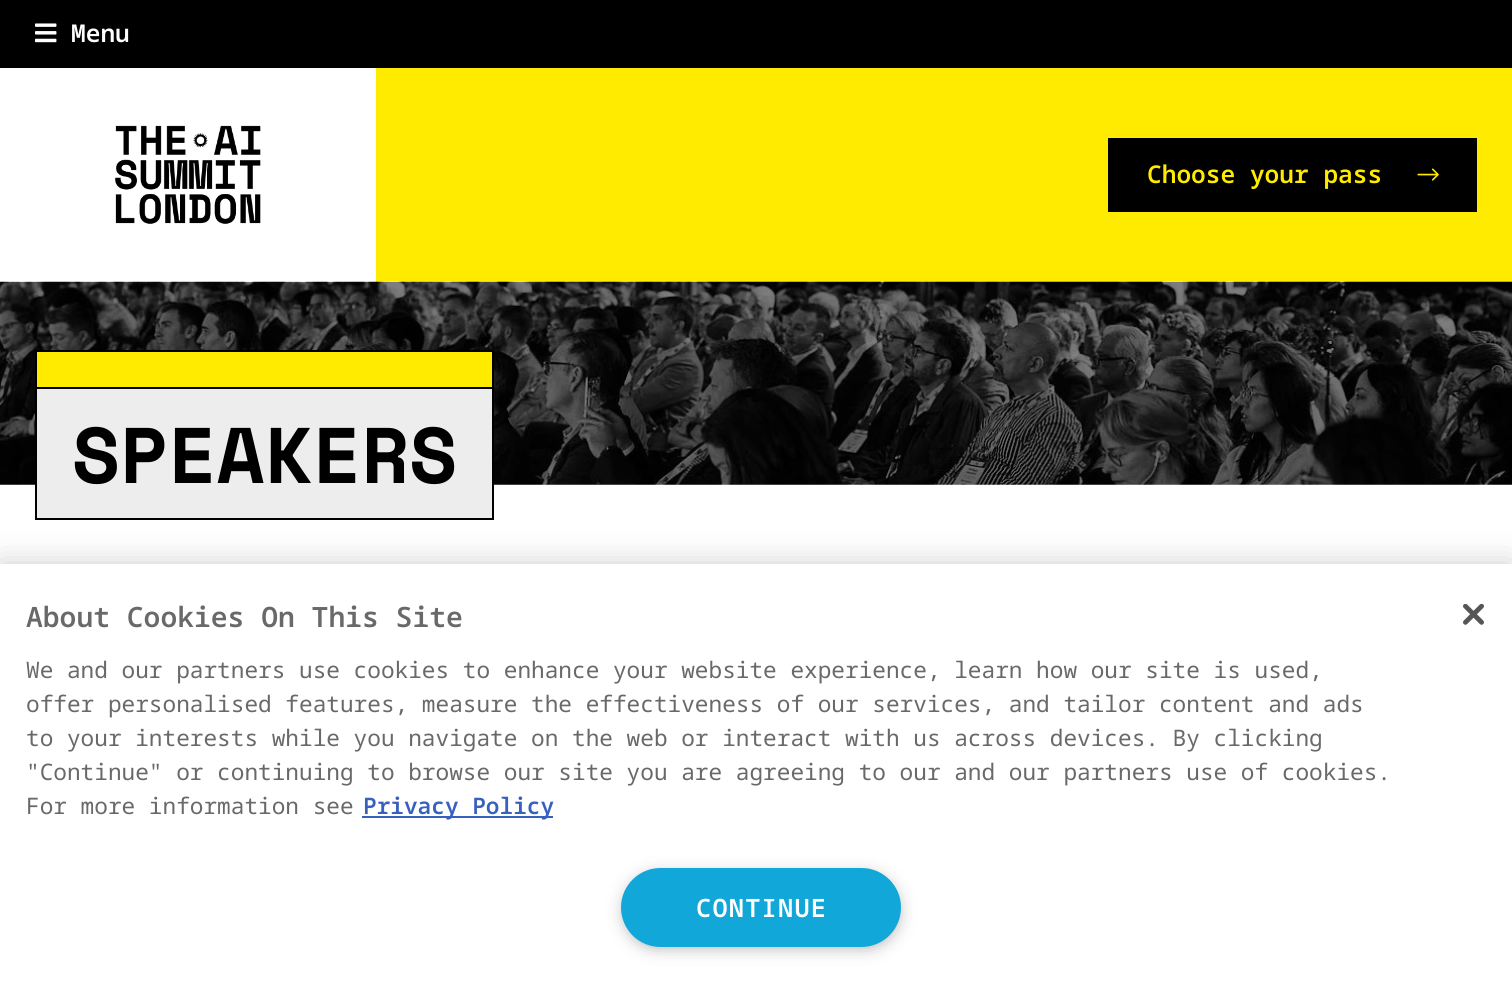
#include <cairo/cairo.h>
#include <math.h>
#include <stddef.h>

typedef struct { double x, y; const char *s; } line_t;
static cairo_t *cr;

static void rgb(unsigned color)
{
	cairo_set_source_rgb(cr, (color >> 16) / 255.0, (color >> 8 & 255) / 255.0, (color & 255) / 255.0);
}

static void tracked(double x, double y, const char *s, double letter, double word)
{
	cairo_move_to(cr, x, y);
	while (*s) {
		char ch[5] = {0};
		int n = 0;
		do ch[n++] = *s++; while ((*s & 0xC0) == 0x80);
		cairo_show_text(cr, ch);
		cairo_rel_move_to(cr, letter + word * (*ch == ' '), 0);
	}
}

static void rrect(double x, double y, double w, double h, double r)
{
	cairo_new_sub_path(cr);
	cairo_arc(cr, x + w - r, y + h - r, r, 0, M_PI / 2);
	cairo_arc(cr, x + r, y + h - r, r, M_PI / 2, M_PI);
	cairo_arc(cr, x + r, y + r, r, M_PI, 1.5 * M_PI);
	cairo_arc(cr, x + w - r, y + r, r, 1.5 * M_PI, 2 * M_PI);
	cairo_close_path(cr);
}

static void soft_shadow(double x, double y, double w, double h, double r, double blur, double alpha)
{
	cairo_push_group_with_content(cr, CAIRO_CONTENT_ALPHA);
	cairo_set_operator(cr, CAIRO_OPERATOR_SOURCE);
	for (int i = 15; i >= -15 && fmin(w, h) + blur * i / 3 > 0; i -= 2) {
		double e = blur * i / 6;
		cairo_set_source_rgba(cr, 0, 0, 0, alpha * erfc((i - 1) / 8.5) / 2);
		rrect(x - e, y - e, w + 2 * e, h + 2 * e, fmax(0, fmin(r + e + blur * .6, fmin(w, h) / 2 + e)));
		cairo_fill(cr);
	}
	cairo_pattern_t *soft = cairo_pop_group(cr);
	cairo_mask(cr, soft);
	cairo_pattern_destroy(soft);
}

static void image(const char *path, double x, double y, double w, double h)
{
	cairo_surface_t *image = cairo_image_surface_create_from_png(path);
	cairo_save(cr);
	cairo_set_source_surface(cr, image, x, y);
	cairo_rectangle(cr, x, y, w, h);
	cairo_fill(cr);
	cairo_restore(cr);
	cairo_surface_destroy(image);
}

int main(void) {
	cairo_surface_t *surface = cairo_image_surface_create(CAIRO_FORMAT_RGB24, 1512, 985);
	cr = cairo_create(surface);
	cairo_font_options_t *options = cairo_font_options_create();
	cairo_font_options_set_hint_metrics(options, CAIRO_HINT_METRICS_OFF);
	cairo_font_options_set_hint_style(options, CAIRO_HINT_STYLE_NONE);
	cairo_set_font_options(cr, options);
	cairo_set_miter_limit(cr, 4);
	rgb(0xffffff);
	cairo_paint(cr);
	rgb(0x000000);
	cairo_rectangle(cr, 0, 0, 1512, 68);
	cairo_fill(cr);
	image("img/1.png", 35, 23, 22, 20);
	image("img/2.png", 115, 125, 146, 99);
	rgb(0xffeb00);
	cairo_rectangle(cr, 376, 68, 1136, 214);
	cairo_fill(cr);
	rgb(0x000000);
	cairo_rectangle(cr, 1108, 138, 369, 74);
	cairo_fill(cr);
	image("img/3.png", 1417, 168, 22, 13);
	image("img/4.png", 0, 281, 1512, 204);
	rgb(0xededed);
	cairo_rectangle(cr, 36, 388, 457, 131);
	cairo_fill_preserve(cr);
	rgb(0x000000);
	cairo_stroke(cr);
	rgb(0xffeb00);
	cairo_rectangle(cr, 36, 351, 457, 37);
	cairo_fill_preserve(cr);
	rgb(0x000000);
	cairo_stroke(cr);
	rgb(0x000000);
	soft_shadow(0, 564, 1512, 421, 0, 16, 0.2);
	rgb(0xffffff);
	cairo_rectangle(cr, 0, 564, 1512, 421);
	cairo_fill(cr);
	rgb(0x3860be);
	cairo_rectangle(cr, 362, 816, 191, 2);
	cairo_fill(cr);
	rgb(0x999999);
	soft_shadow(627, 877, 269, 68, 34, 9, 1);
	rgb(0x11a7d9);
	rrect(622, 869, 278, 77, 38.5);
	cairo_fill_preserve(cr);
	cairo_stroke(cr);
	image("img/5.png", 1463, 604, 21, 21);
	cairo_select_font_face(cr, "Noto Sans Mono SemiBold", CAIRO_FONT_SLANT_NORMAL, CAIRO_FONT_WEIGHT_NORMAL);
	cairo_set_font_size(cr, 24.5);
	rgb(0xffffff);
	cairo_move_to(cr, 71, 42);
	cairo_show_text(cr, "Menu");
	rgb(0xffeb00);
	cairo_move_to(cr, 1147, 183);
	cairo_show_text(cr, "Choose your pass");
	cairo_select_font_face(cr, "Space Mono", CAIRO_FONT_SLANT_NORMAL, CAIRO_FONT_WEIGHT_BOLD);
	cairo_set_font_size(cr, 78.75);
	rgb(0x000000);
	cairo_move_to(cr, 72, 483);
	cairo_show_text(cr, "SPEAKERS");
	cairo_select_font_face(cr, "Noto Sans Mono SemiBold", CAIRO_FONT_SLANT_NORMAL, CAIRO_FONT_WEIGHT_NORMAL);
	cairo_set_font_size(cr, 28);
	rgb(0x696969);
	cairo_move_to(cr, 26, 627);
	cairo_show_text(cr, "About Cookies On This Site");
	cairo_select_font_face(cr, "Noto Sans Mono", CAIRO_FONT_SLANT_NORMAL, CAIRO_FONT_WEIGHT_NORMAL);
	cairo_set_font_size(cr, 22.75);
	{
		static const line_t items[] = {
			{26, 678, "We and our partners use cookies to enhance your website experience, learn how our site is used,"},
			{26, 712, "offer personalised features, measure the effectiveness of our services, and tailor content and ads"},
			{26, 746, "to your interests while you navigate on the web or interact with us across devices. By clicking"},
			{26, 780, "\"Continue\" or continuing to browse our site you are agreeing to our and our partners use of cookies."},
			{26, 814, "For more information see"},
		};
		for (size_t i = 0; i < sizeof items / sizeof *items; i++) {
			cairo_move_to(cr, items[i].x, items[i].y);
			cairo_show_text(cr, items[i].s);
		}
	}
	cairo_select_font_face(cr, "Noto Sans Mono SemiBold", CAIRO_FONT_SLANT_NORMAL, CAIRO_FONT_WEIGHT_NORMAL);
	rgb(0x3860be);
	cairo_move_to(cr, 363, 814);
	cairo_show_text(cr, "Privacy Policy");
	cairo_set_font_size(cr, 25.25);
	rgb(0xffffff);
	tracked(696, 917, "CONTINUE", 1.25, 0);
	cairo_surface_write_to_png(surface, "page.png");
	cairo_font_options_destroy(options);
	cairo_destroy(cr);
	cairo_surface_destroy(surface);
	return 0;
}
